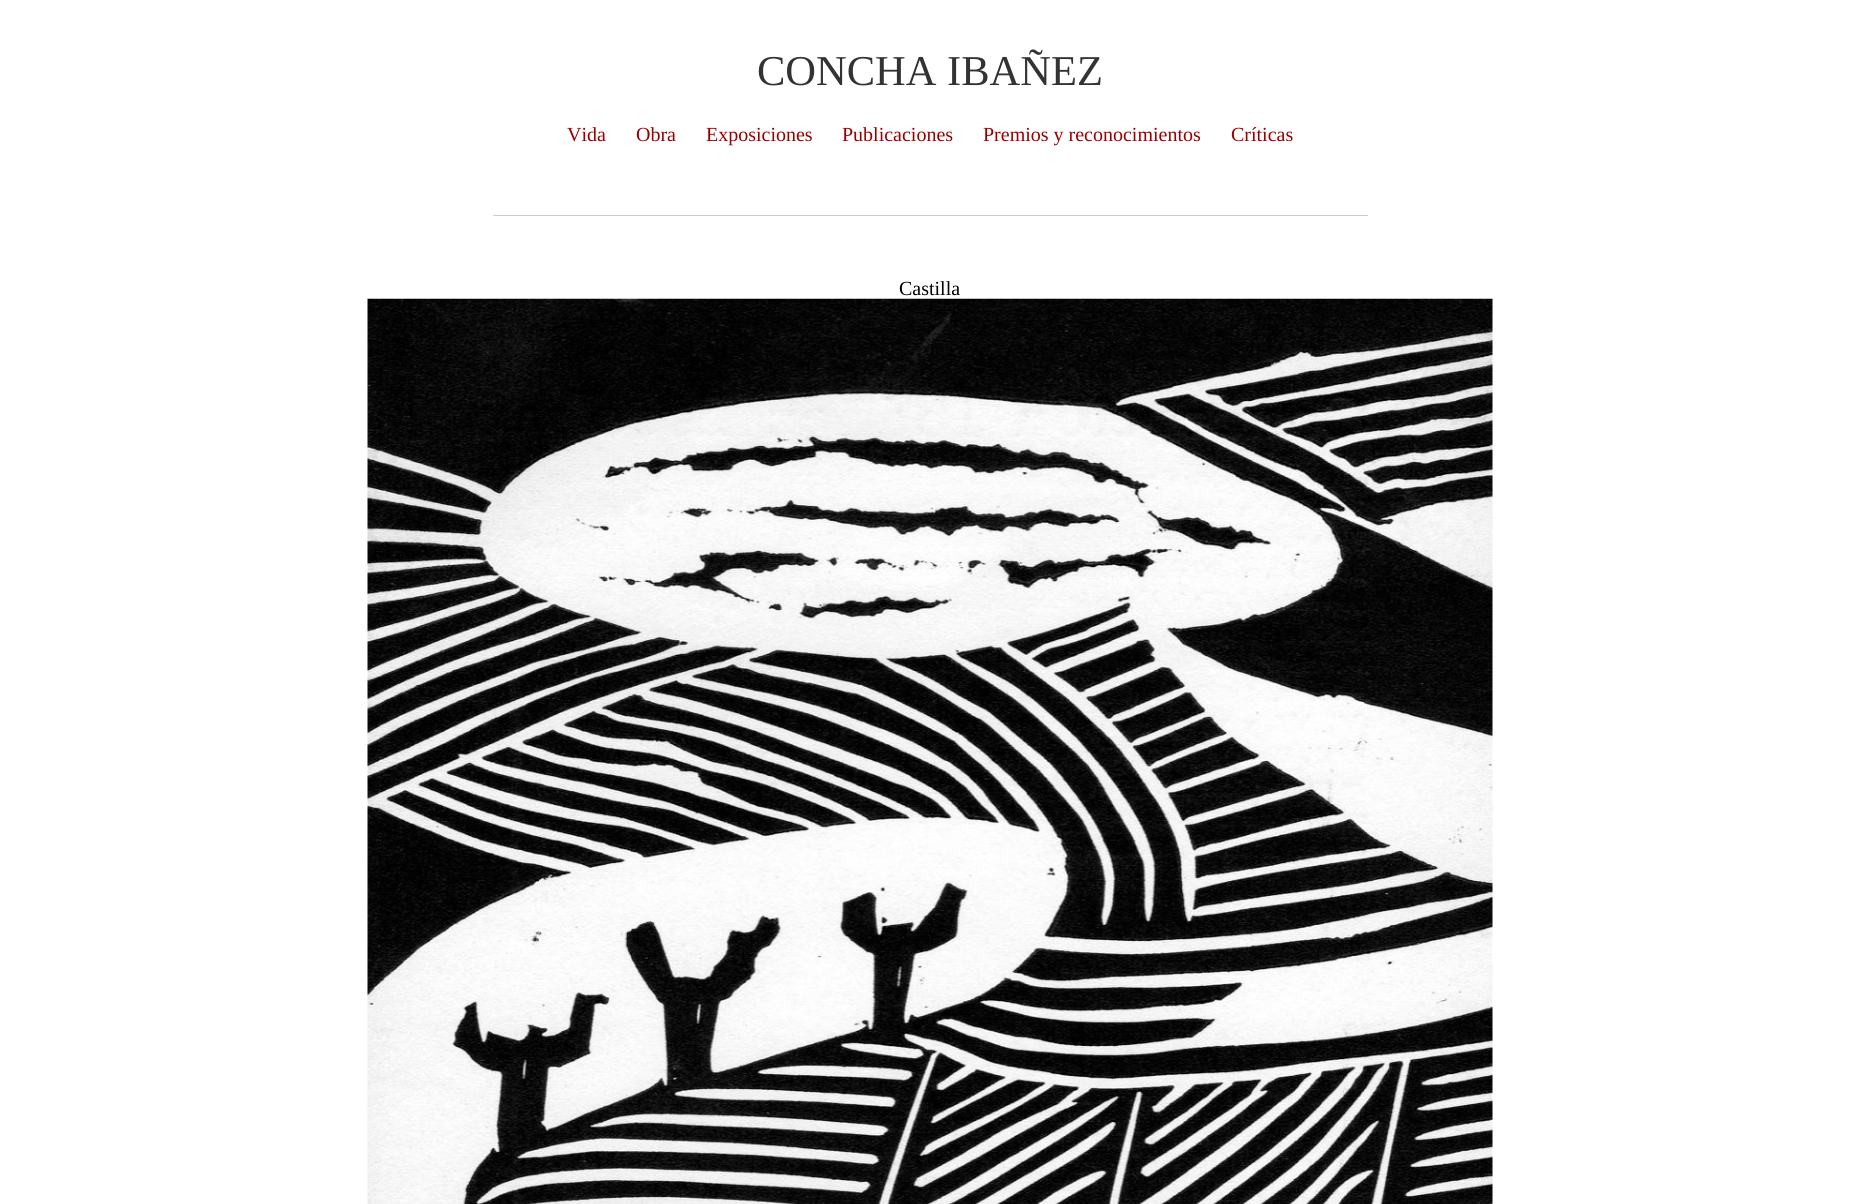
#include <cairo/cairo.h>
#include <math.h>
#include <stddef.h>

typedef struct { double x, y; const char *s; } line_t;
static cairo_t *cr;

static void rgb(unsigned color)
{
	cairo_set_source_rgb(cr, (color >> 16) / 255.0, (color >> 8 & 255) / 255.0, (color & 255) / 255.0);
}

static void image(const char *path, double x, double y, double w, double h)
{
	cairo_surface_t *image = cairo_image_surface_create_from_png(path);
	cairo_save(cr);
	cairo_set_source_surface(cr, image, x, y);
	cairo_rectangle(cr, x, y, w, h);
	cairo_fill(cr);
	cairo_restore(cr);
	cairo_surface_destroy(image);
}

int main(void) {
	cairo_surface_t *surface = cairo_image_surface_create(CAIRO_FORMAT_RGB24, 1859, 1204);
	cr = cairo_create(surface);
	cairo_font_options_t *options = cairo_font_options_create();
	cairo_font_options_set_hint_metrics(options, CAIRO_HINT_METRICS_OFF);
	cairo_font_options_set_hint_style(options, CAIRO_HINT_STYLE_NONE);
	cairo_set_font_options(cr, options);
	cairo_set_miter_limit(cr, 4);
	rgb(0xffffff);
	cairo_paint(cr);
	rgb(0xcccccc);
	cairo_rectangle(cr, 493, 215, 875, 1);
	cairo_fill(cr);
	image("img/1.png", 367, 298, 1126, 906);
	cairo_select_font_face(cr, "Liberation Serif", CAIRO_FONT_SLANT_NORMAL, CAIRO_FONT_WEIGHT_NORMAL);
	cairo_set_font_size(cr, 42.5);
	rgb(0x333333);
	cairo_move_to(cr, 757, 85);
	cairo_show_text(cr, "CONCHA IBAÑEZ");
	cairo_set_font_size(cr, 20);
	rgb(0x990000);
	{
		static const line_t items[] = {
			{567, 141, "Vida"},
			{636, 141, "Obra"},
			{706, 141, "Exposiciones"},
			{842, 141, "Publicaciones"},
			{983, 141, "Premios y reconocimientos"},
			{1231, 141, "Críticas"},
		};
		for (size_t i = 0; i < sizeof items / sizeof *items; i++) {
			cairo_move_to(cr, items[i].x, items[i].y);
			cairo_show_text(cr, items[i].s);
		}
	}
	rgb(0x000000);
	cairo_move_to(cr, 899, 295);
	cairo_show_text(cr, "Castilla");
	cairo_surface_write_to_png(surface, "page.png");
	cairo_font_options_destroy(options);
	cairo_destroy(cr);
	cairo_surface_destroy(surface);
	return 0;
}
